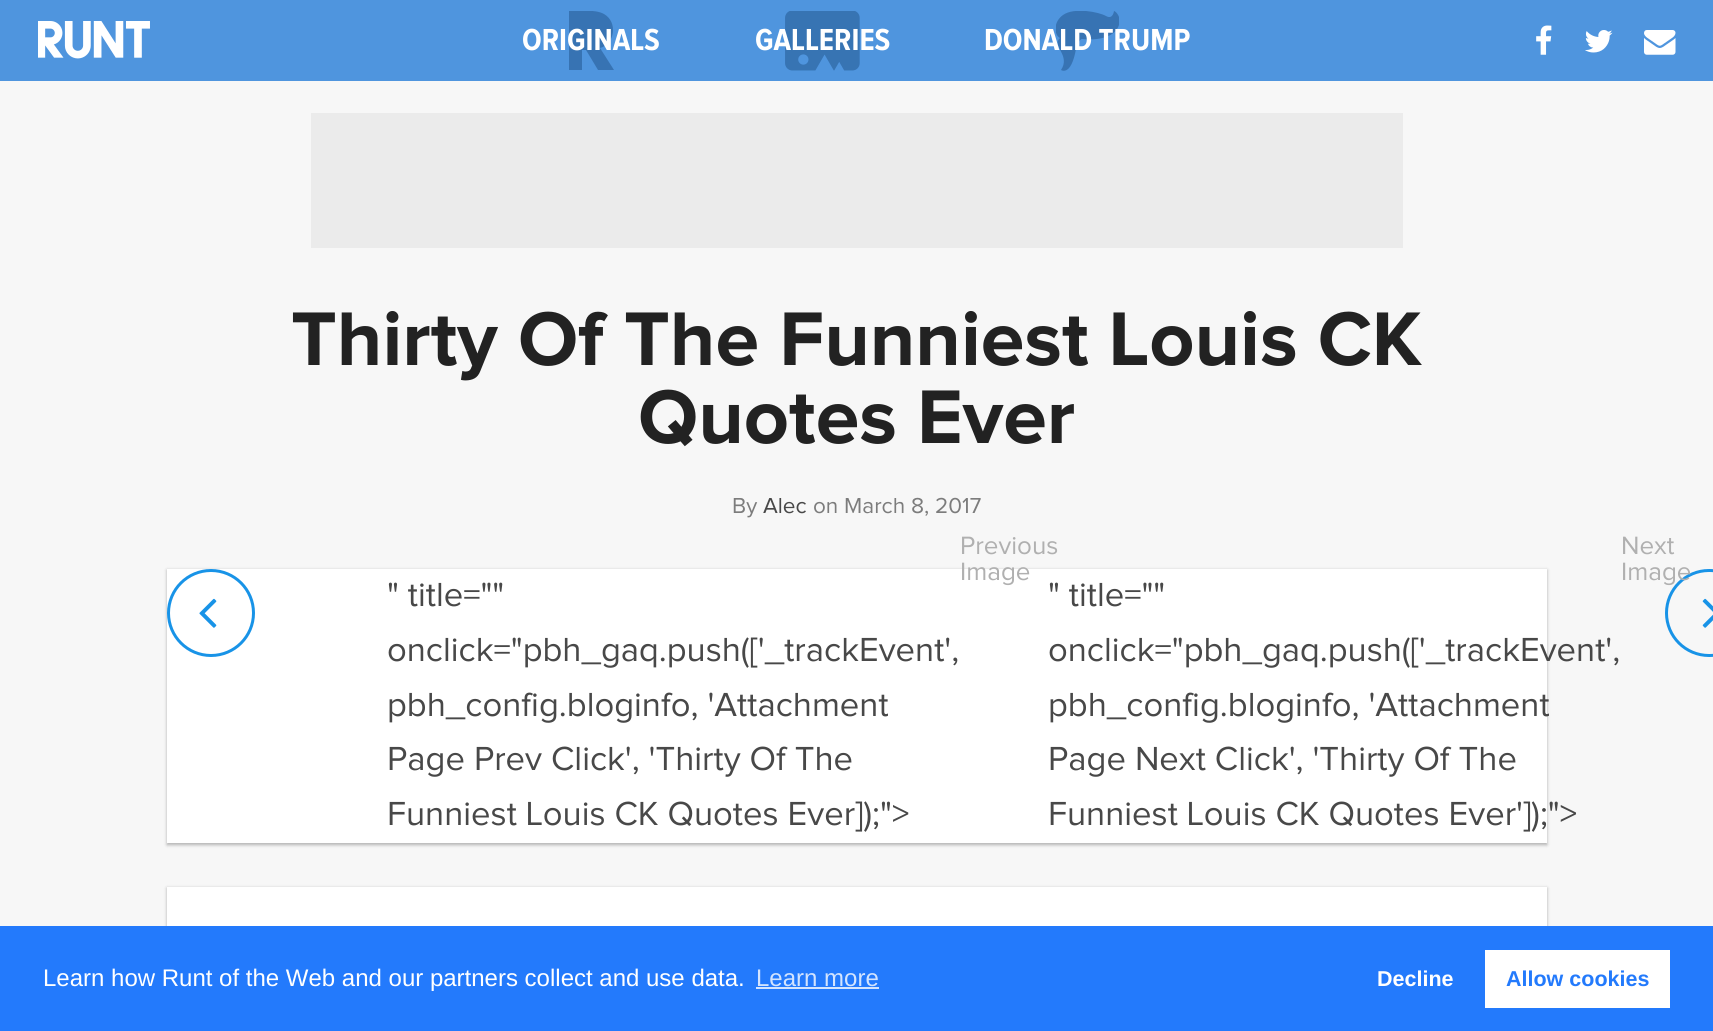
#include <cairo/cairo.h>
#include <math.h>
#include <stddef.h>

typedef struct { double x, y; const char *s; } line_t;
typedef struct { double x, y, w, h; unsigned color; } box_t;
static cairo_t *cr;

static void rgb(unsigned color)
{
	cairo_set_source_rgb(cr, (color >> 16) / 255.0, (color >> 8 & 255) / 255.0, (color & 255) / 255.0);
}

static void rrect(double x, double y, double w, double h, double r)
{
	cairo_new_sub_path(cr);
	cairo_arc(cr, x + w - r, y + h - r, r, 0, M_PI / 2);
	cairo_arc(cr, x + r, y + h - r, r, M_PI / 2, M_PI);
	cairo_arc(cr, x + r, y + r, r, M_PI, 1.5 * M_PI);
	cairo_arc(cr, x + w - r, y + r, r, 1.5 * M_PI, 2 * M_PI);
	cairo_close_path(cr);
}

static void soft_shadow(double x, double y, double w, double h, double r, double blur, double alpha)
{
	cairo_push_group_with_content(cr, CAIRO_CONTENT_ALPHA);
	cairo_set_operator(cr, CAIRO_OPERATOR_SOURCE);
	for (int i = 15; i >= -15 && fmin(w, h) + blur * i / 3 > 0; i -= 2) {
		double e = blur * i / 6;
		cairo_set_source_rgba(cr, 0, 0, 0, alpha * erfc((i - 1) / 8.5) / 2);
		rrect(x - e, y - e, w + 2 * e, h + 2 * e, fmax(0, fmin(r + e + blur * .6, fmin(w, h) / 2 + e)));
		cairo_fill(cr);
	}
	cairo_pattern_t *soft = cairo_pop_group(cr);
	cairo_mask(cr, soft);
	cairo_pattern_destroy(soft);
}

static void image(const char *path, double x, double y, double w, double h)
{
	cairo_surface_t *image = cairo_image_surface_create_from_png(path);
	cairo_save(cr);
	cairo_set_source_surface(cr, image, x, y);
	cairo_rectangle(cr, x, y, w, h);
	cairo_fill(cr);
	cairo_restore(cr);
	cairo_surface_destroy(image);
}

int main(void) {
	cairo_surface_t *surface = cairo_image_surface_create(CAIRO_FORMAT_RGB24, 1713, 1031);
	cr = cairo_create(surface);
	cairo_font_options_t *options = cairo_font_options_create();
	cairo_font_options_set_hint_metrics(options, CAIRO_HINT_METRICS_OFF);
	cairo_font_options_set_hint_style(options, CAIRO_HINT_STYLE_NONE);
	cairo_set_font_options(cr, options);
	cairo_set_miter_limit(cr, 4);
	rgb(0xf7f7f7);
	cairo_paint(cr);
	rgb(0x4f95de);
	cairo_rectangle(cr, 0, 0, 1713, 81);
	cairo_fill(cr);
	image("img/1.png", 38, 21, 112, 38);
	cairo_save(cr);
	cairo_rectangle(cr, 569, 11, 45, 60);
	cairo_clip(cr);
	rgb(0x3773b3);
	cairo_set_fill_rule(cr, CAIRO_FILL_RULE_EVEN_ODD);
	cairo_new_path(cr);
	cairo_move_to(cr, 600, 48);
	cairo_curve_to(cr, 615, 44, 618, 22, 604, 14);
	cairo_curve_to(cr, 595, 9, 579, 11, 568, 11);
	cairo_line_to(cr, 568, 70);
	cairo_line_to(cr, 582, 70);
	cairo_line_to(cr, 582, 50);
	cairo_line_to(cr, 586, 50);
	cairo_line_to(cr, 598, 70);
	cairo_line_to(cr, 614, 70);
	cairo_close_path(cr);
	cairo_fill(cr);
	cairo_restore(cr);
	image("img/2.png", 785, 11, 75, 60);
	cairo_save(cr);
	cairo_rectangle(cr, 1056, 11, 63, 60);
	cairo_clip(cr);
	rgb(0x3773b3);
	cairo_set_fill_rule(cr, CAIRO_FILL_RULE_EVEN_ODD);
	cairo_new_path(cr);
	cairo_move_to(cr, 1061, 70);
	cairo_curve_to(cr, 1061, 70, 1071, 77, 1076, 49);
	cairo_curve_to(cr, 1077, 44, 1080, 39, 1082, 39);
	cairo_curve_to(cr, 1082, 39, 1118, 44, 1120, 20);
	cairo_curve_to(cr, 1118, 12, 1114, 11, 1114, 11);
	cairo_curve_to(cr, 1114, 11, 1113, 20, 1106, 16);
	cairo_curve_to(cr, 1099, 12, 1074, 7, 1063, 15);
	cairo_curve_to(cr, 1053, 22, 1054, 35, 1060, 38);
	cairo_curve_to(cr, 1051, 46, 1071, 55, 1061, 70);
	cairo_close_path(cr);
	cairo_fill(cr);
	cairo_restore(cr);
	image("img/3.png", 1536, 25, 16, 30);
	image("img/4.png", 1585, 30, 28, 23);
	image("img/5.png", 1644, 30, 32, 25);
	rgb(0xebebeb);
	cairo_rectangle(cr, 311, 113, 1092, 135);
	cairo_fill(cr);
	rgb(0x000000);
	soft_shadow(167, 570, 1380, 275, 0, 1.5, 0.18);
	soft_shadow(167, 570, 1380, 275, 0, 2, 0.12);
	rgb(0xffffff);
	cairo_rectangle(cr, 167, 569, 1380, 274);
	cairo_fill(cr);
	cairo_arc(cr, 211, 613, 42.5, 0, 2 * M_PI);
	rgb(0x1893e7);
	cairo_set_line_width(cr, 3);
	cairo_stroke(cr);
	image("img/6.png", 199, 598, 18, 30);
	rrect(1666.5, 570.5, 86, 85, 42.5);
	cairo_stroke(cr);
	image("img/7.png", 1702, 598, 11, 30);
	rgb(0x000000);
	soft_shadow(167, 888, 1380, 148, 0, 1.5, 0.18);
	soft_shadow(167, 888, 1380, 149, 0, 2, 0.12);
	{
		static const box_t items[] = {
			{167, 887, 1380, 39, 0xffffff},
			{0, 926, 1713, 105, 0x237afc},
			{756, 987, 123, 2, 0xd3e4fe},
			{1485, 950, 185, 58, 0xffffff},
		};
		for (size_t i = 0; i < sizeof items / sizeof *items; i++) {
			rgb(items[i].color);
			cairo_rectangle(cr, items[i].x, items[i].y, items[i].w, items[i].h);
			cairo_fill(cr);
		}
	}
	cairo_select_font_face(cr, "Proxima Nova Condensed", CAIRO_FONT_SLANT_NORMAL, CAIRO_FONT_WEIGHT_BOLD);
	cairo_set_font_size(cr, 31.5);
	{
		static const line_t items[] = {
			{522, 50, "ORIGINALS"},
			{755, 50, "GALLERIES"},
			{984, 50, "DONALD TRUMP"},
		};
		for (size_t i = 0; i < sizeof items / sizeof *items; i++) {
			cairo_move_to(cr, items[i].x, items[i].y);
			cairo_show_text(cr, items[i].s);
		}
	}
	cairo_select_font_face(cr, "Proxima Nova", CAIRO_FONT_SLANT_NORMAL, CAIRO_FONT_WEIGHT_BOLD);
	cairo_set_font_size(cr, 78.75);
	rgb(0x222222);
	cairo_move_to(cr, 291, 365);
	cairo_show_text(cr, "Thirty Of The Funniest Louis CK");
	cairo_move_to(cr, 638, 443);
	cairo_show_text(cr, "Quotes Ever");
	cairo_select_font_face(cr, "Proxima Nova", CAIRO_FONT_SLANT_NORMAL, CAIRO_FONT_WEIGHT_NORMAL);
	cairo_set_font_size(cr, 22.5);
	rgb(0x7c7c7c);
	cairo_move_to(cr, 732, 513);
	cairo_show_text(cr, "By");
	rgb(0x484848);
	cairo_move_to(cr, 763, 513);
	cairo_show_text(cr, "Alec");
	rgb(0x7c7c7c);
	cairo_move_to(cr, 813, 513);
	cairo_show_text(cr, "on March 8, 2017");
	cairo_set_font_size(cr, 26);
	rgb(0xb0b0b0);
	{
		static const line_t items[] = {
			{960, 554, "Previous"},
			{960, 580, "Image"},
			{1621, 554, "Next"},
			{1621, 580, "Image"},
		};
		for (size_t i = 0; i < sizeof items / sizeof *items; i++) {
			cairo_move_to(cr, items[i].x, items[i].y);
			cairo_show_text(cr, items[i].s);
		}
	}
	cairo_set_font_size(cr, 34.6);
	rgb(0x484848);
	{
		static const line_t items[] = {
			{387, 606, "\" title=\"\""},
			{1048, 606, "\" title=\"\""},
			{387, 661, "onclick=\"pbh_gaq.push(['_trackEvent',"},
			{1048, 661, "onclick=\"pbh_gaq.push(['_trackEvent',"},
			{387, 716, "pbh_config.bloginfo, 'Attachment"},
			{1048, 716, "pbh_config.bloginfo, 'Attachment"},
			{387, 770, "Page Prev Click', 'Thirty Of The"},
			{1048, 770, "Page Next Click', 'Thirty Of The"},
			{387, 825, "Funniest Louis CK Quotes Ever]);\">"},
			{1048, 825, "Funniest Louis CK Quotes Ever']);\">"},
		};
		for (size_t i = 0; i < sizeof items / sizeof *items; i++) {
			cairo_move_to(cr, items[i].x, items[i].y);
			cairo_show_text(cr, items[i].s);
		}
	}
	cairo_select_font_face(cr, "Liberation Sans", CAIRO_FONT_SLANT_NORMAL, CAIRO_FONT_WEIGHT_NORMAL);
	cairo_set_font_size(cr, 24);
	rgb(0xffffff);
	cairo_move_to(cr, 43, 986);
	cairo_show_text(cr, "Learn how Runt of the Web and our partners collect and use data.");
	rgb(0xd3e4fe);
	cairo_move_to(cr, 756, 986);
	cairo_show_text(cr, "Learn more");
	cairo_select_font_face(cr, "Liberation Sans", CAIRO_FONT_SLANT_NORMAL, CAIRO_FONT_WEIGHT_BOLD);
	cairo_set_font_size(cr, 21.5);
	rgb(0xffffff);
	cairo_move_to(cr, 1377, 986);
	cairo_show_text(cr, "Decline");
	rgb(0x237afc);
	cairo_move_to(cr, 1506, 986);
	cairo_show_text(cr, "Allow cookies");
	cairo_surface_write_to_png(surface, "page.png");
	cairo_font_options_destroy(options);
	cairo_destroy(cr);
	cairo_surface_destroy(surface);
	return 0;
}
